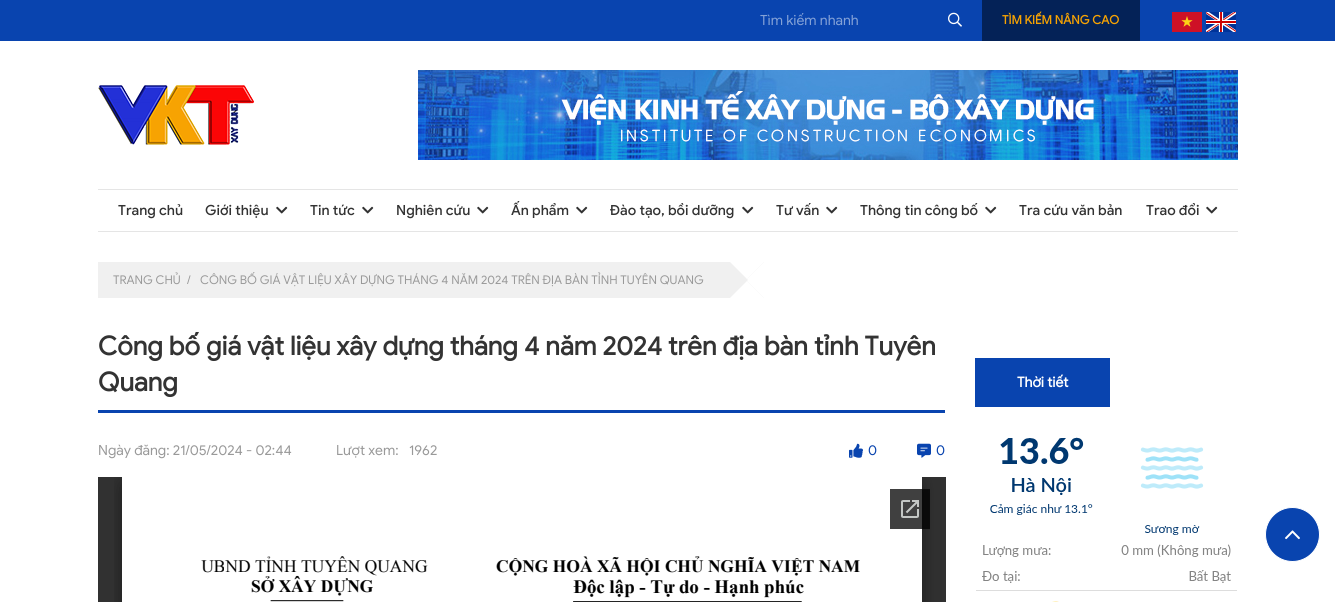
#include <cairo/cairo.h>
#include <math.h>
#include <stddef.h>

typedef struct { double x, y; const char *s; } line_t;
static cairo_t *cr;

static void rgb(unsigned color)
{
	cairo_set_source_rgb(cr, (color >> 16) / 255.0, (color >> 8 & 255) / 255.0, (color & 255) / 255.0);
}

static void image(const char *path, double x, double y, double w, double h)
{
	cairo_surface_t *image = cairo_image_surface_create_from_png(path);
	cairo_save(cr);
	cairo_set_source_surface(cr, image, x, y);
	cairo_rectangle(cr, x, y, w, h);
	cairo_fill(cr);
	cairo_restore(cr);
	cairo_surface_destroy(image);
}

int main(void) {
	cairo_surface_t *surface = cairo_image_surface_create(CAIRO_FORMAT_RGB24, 1335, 602);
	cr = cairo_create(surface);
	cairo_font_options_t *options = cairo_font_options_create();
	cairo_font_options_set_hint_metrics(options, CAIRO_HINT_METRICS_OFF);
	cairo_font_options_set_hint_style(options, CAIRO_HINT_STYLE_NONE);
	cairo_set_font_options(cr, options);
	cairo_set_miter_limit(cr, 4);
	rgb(0xffffff);
	cairo_paint(cr);
	rgb(0x0944af);
	cairo_rectangle(cr, 0, 0, 1335, 41);
	cairo_fill(cr);
	image("img/1.png", 948, 12, 14, 15);
	rgb(0x042257);
	cairo_rectangle(cr, 982, 0, 158, 41);
	cairo_fill(cr);
	image("img/2.png", 1172, 12, 30, 20);
	image("img/3.png", 1206, 12, 30, 20);
	image("img/4.png", 98, 85, 156, 60);
	image("img/5.png", 418, 70, 820, 90);
	rgb(0xe5e5e5);
	cairo_rectangle(cr, 98, 189, 1140, 1);
	cairo_fill(cr);
	cairo_rectangle(cr, 98, 231, 1140, 1);
	cairo_fill(cr);
	image("img/6.png", 276, 206, 12, 8);
	image("img/6.png", 362, 206, 12, 8);
	image("img/6.png", 477, 206, 12, 8);
	image("img/6.png", 576, 206, 12, 8);
	image("img/6.png", 742, 206, 12, 8);
	image("img/6.png", 826, 206, 12, 8);
	image("img/6.png", 985, 206, 12, 8);
	image("img/6.png", 1206, 206, 12, 8);
	rgb(0xf0f0f0);
	cairo_rectangle(cr, 98, 262, 666, 36);
	cairo_fill(cr);
	rgb(0xffffff);
	cairo_new_path(cr);
	cairo_move_to(cr, 730, 262);
	cairo_line_to(cr, 764, 262);
	cairo_line_to(cr, 747, 279);
	cairo_close_path(cr);
	cairo_fill(cr);
	cairo_new_path(cr);
	cairo_move_to(cr, 764, 262);
	cairo_line_to(cr, 764, 296);
	cairo_line_to(cr, 747, 279);
	cairo_close_path(cr);
	cairo_fill(cr);
	cairo_new_path(cr);
	cairo_move_to(cr, 764, 264);
	cairo_line_to(cr, 764, 298);
	cairo_line_to(cr, 747, 281);
	cairo_close_path(cr);
	cairo_fill(cr);
	cairo_new_path(cr);
	cairo_move_to(cr, 764, 298);
	cairo_line_to(cr, 730, 298);
	cairo_line_to(cr, 747, 281);
	cairo_close_path(cr);
	cairo_fill(cr);
	rgb(0x0944af);
	cairo_rectangle(cr, 98, 410, 847, 3);
	cairo_fill(cr);
	image("img/7.png", 849, 443, 14, 15);
	image("img/8.png", 917, 443, 14, 15);
	image("img/9.png", 98, 477, 848, 125);
	cairo_rectangle(cr, 975, 358, 135, 49);
	cairo_fill(cr);
	image("img/10.png", 976, 437, 261, 165);
	cairo_arc(cr, 1292.5, 534.5, 27, 0, 2 * M_PI);
	cairo_fill_preserve(cr);
	rgb(0xffffff);
	cairo_set_line_width(cr, 1);
	cairo_stroke(cr);
	image("img/11.png", 1285, 530, 15, 10);
	cairo_select_font_face(cr, "Google Sans", CAIRO_FONT_SLANT_NORMAL, CAIRO_FONT_WEIGHT_NORMAL);
	cairo_set_font_size(cr, 14);
	rgb(0x84a2d7);
	cairo_move_to(cr, 760, 25);
	cairo_show_text(cr, "Tìm kiếm nhanh");
	cairo_select_font_face(cr, "Google Sans", CAIRO_FONT_SLANT_NORMAL, CAIRO_FONT_WEIGHT_BOLD);
	cairo_set_font_size(cr, 12);
	rgb(0xf7a302);
	cairo_move_to(cr, 1002, 24);
	cairo_show_text(cr, "TÌM KIẾM NÂNG CAO");
	cairo_select_font_face(cr, "Google Sans Medium", CAIRO_FONT_SLANT_NORMAL, CAIRO_FONT_WEIGHT_NORMAL);
	cairo_set_font_size(cr, 14);
	rgb(0x333333);
	{
		static const line_t items[] = {
			{118, 215, "Trang chủ"},
			{205, 215, "Giới thiệu"},
			{310, 215, "Tin tức"},
			{396, 215, "Nghiên cứu"},
			{511, 215, "Ấn phẩm"},
			{610, 215, "Đào tạo, bồi dưỡng"},
			{776, 215, "Tư vấn"},
			{860, 215, "Thông tin công bố"},
			{1019, 215, "Tra cứu văn bản"},
			{1146, 215, "Trao đổi"},
		};
		for (size_t i = 0; i < sizeof items / sizeof *items; i++) {
			cairo_move_to(cr, items[i].x, items[i].y);
			cairo_show_text(cr, items[i].s);
		}
	}
	cairo_select_font_face(cr, "Google Sans", CAIRO_FONT_SLANT_NORMAL, CAIRO_FONT_WEIGHT_NORMAL);
	cairo_set_font_size(cr, 12);
	rgb(0x999999);
	{
		static const line_t items[] = {
			{113, 284, "TRANG CHỦ"},
			{187, 284, "/"},
			{200, 284, "CÔNG BỐ GIÁ VẬT LIỆU XÂY DỰNG THÁNG 4 NĂM 2024 TRÊN ĐỊA BÀN TỈNH TUYÊN QUANG"},
		};
		for (size_t i = 0; i < sizeof items / sizeof *items; i++) {
			cairo_move_to(cr, items[i].x, items[i].y);
			cairo_show_text(cr, items[i].s);
		}
	}
	cairo_select_font_face(cr, "Google Sans", CAIRO_FONT_SLANT_NORMAL, CAIRO_FONT_WEIGHT_BOLD);
	cairo_set_font_size(cr, 26);
	rgb(0x333333);
	cairo_move_to(cr, 98, 355);
	cairo_show_text(cr, "Công bố giá vật liệu xây dựng tháng 4 năm 2024 trên địa bàn tỉnh Tuyên");
	cairo_move_to(cr, 98, 391);
	cairo_show_text(cr, "Quang");
	cairo_select_font_face(cr, "Google Sans", CAIRO_FONT_SLANT_NORMAL, CAIRO_FONT_WEIGHT_NORMAL);
	cairo_set_font_size(cr, 14);
	rgb(0x999999);
	{
		static const line_t items[] = {
			{98, 455, "Ngày đăng: 21/05/2024 - 02:44"},
			{336, 455, "Lượt xem:"},
			{409, 455, "1962"},
		};
		for (size_t i = 0; i < sizeof items / sizeof *items; i++) {
			cairo_move_to(cr, items[i].x, items[i].y);
			cairo_show_text(cr, items[i].s);
		}
	}
	rgb(0x0944af);
	cairo_move_to(cr, 868, 455);
	cairo_show_text(cr, "0");
	cairo_move_to(cr, 936, 455);
	cairo_show_text(cr, "0");
	cairo_select_font_face(cr, "Google Sans", CAIRO_FONT_SLANT_NORMAL, CAIRO_FONT_WEIGHT_BOLD);
	rgb(0xffffff);
	cairo_move_to(cr, 1017, 387);
	cairo_show_text(cr, "Thời tiết");
	cairo_surface_write_to_png(surface, "page.png");
	cairo_font_options_destroy(options);
	cairo_destroy(cr);
	cairo_surface_destroy(surface);
	return 0;
}
